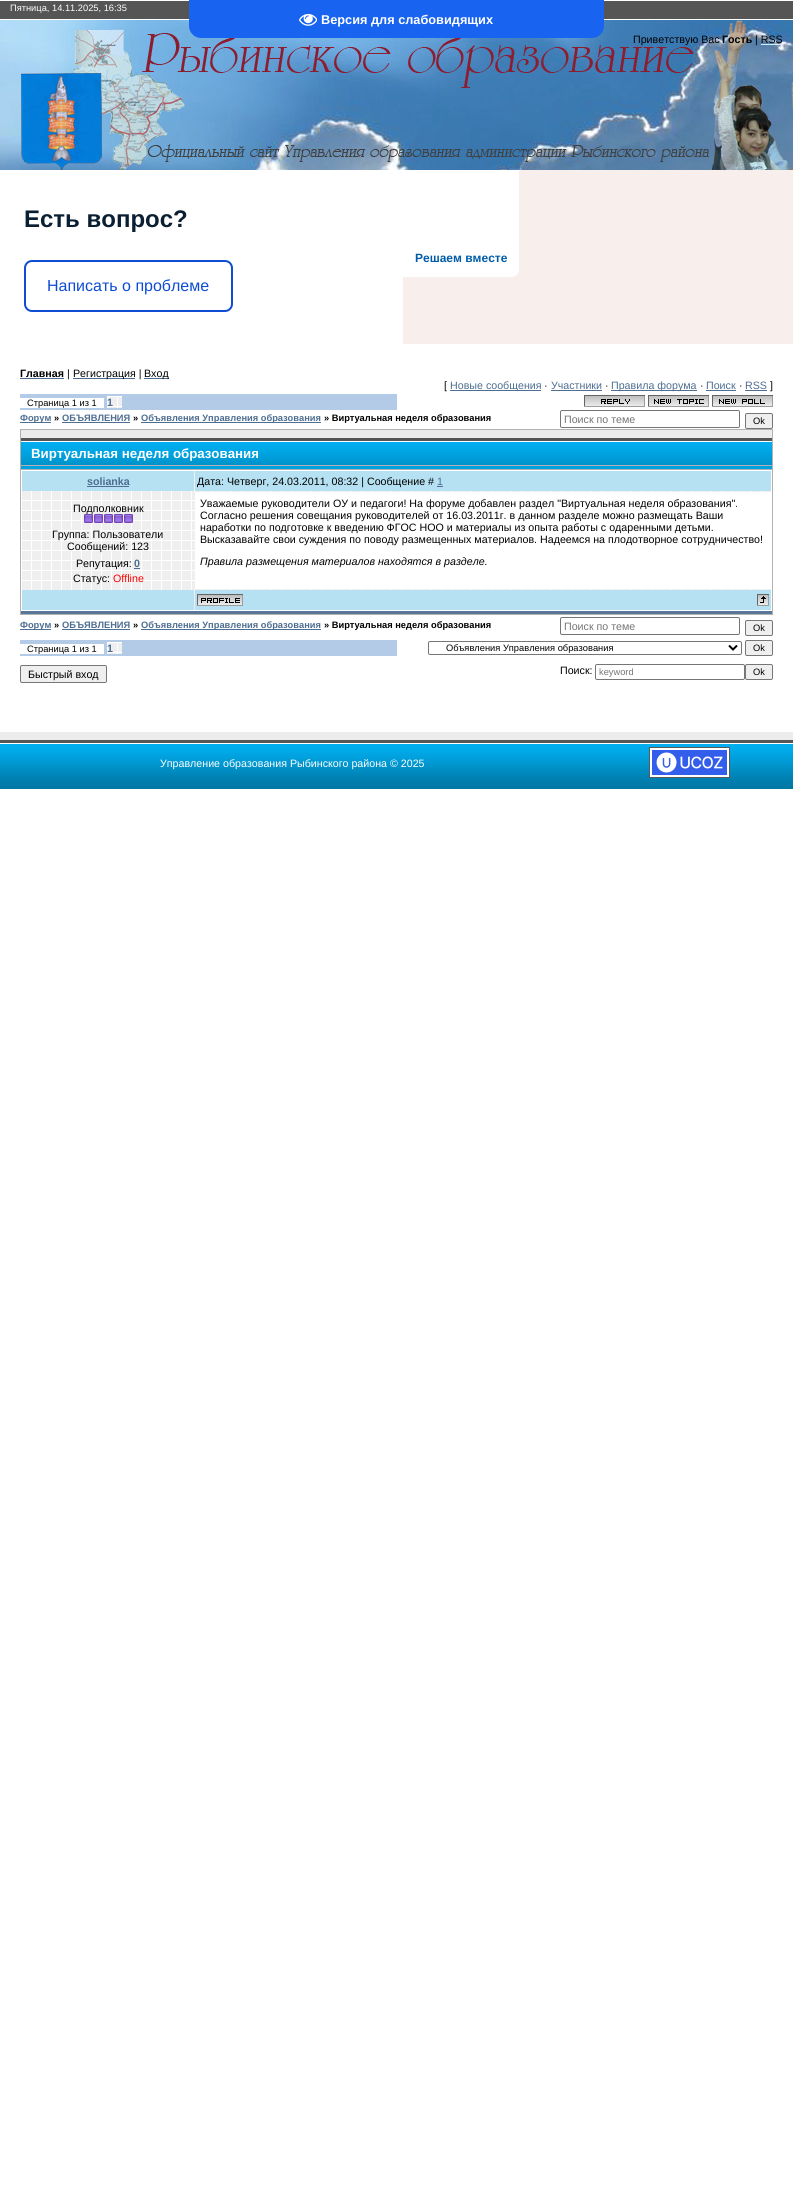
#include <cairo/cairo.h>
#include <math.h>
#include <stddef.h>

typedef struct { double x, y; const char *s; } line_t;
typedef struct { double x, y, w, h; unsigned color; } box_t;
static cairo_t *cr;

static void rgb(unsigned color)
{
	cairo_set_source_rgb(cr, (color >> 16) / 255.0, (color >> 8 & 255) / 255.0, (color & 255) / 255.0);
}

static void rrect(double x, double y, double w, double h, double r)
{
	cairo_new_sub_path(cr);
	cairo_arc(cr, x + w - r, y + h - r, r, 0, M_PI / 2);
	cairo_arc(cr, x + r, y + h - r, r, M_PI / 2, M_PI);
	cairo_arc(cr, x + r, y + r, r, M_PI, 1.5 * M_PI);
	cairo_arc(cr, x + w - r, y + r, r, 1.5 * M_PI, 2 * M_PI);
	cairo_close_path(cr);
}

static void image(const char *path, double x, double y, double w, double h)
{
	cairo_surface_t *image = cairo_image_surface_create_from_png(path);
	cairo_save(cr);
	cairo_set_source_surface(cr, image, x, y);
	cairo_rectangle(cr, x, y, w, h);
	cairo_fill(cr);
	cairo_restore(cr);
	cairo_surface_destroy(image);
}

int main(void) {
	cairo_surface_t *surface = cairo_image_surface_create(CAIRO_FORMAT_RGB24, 793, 2191);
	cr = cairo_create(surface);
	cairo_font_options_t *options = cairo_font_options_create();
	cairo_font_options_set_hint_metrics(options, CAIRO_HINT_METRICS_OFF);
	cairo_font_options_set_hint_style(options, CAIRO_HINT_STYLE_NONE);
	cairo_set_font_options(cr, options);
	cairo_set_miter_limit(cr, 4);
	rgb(0xffffff);
	cairo_paint(cr);
	image("img/1.png", 0, 1, 793, 19);
	image("img/2.png", 0, 20, 793, 30);
	image("img/3.png", 0, 50, 793, 90);
	image("img/4.png", 0, 140, 793, 30);
	rrect(25, 261, 207, 50, 7);
	rgb(0x0d4cd3);
	cairo_stroke(cr);
	rgb(0xf8efec);
	cairo_rectangle(cr, 403, 170, 390, 174);
	cairo_fill(cr);
	rgb(0xffffff);
	cairo_new_path(cr);
	cairo_move_to(cr, 403, 170);
	cairo_line_to(cr, 519, 170);
	cairo_line_to(cr, 519, 269);
	cairo_curve_to(cr, 519, 273.5, 515.5, 277, 511, 277);
	cairo_line_to(cr, 403, 277);
	cairo_close_path(cr);
	cairo_fill(cr);
	{
		static const box_t items[] = {
			{20, 378, 44, 1, 0x4d6d91},
			{73, 378, 62, 1, 0x4d6d91},
			{144, 378, 25, 1, 0x4d6d91},
			{450, 390, 91, 1, 0x4d6d91},
			{551, 390, 51, 1, 0x4d6d91},
			{611, 390, 86, 1, 0x4d6d91},
			{706, 390, 30, 1, 0x4d6d91},
			{745, 390, 22, 1, 0x4d6d91},
			{20, 394, 377, 16, 0xb4cbe7},
			{20, 398, 84, 10, 0xffffff},
		};
		for (size_t i = 0; i < sizeof items / sizeof *items; i++) {
			rgb(items[i].color);
			cairo_rectangle(cr, items[i].x, items[i].y, items[i].w, items[i].h);
			cairo_fill(cr);
		}
	}
	image("img/5.png", 107, 396, 15, 12);
	image("img/6.png", 584, 395, 61, 12);
	image("img/7.png", 648, 395, 61, 12);
	image("img/8.png", 712, 395, 61, 12);
	{
		static const box_t items[] = {
			{20, 422, 31, 1, 0x4d6d91},
			{62, 422, 68, 1, 0x4d6d91},
			{141, 422, 180, 1, 0x4d6d91},
		};
		for (size_t i = 0; i < sizeof items / sizeof *items; i++) {
			rgb(items[i].color);
			cairo_rectangle(cr, items[i].x, items[i].y, items[i].w, items[i].h);
			cairo_fill(cr);
		}
	}
	rrect(560.5, 410.5, 179, 17, 1.5);
	rgb(0x767676);
	cairo_set_line_width(cr, 1);
	cairo_stroke(cr);
	rgb(0xefefef);
	rrect(745.5, 413.5, 27, 15, 1.5);
	cairo_fill_preserve(cr);
	rgb(0x767676);
	cairo_stroke(cr);
	rgb(0xb3b2b2);
	cairo_rectangle(cr, 20, 429, 753, 186);
	cairo_fill(cr);
	image("img/9.png", 21, 430, 751, 35);
	rgb(0x00a1de);
	cairo_rectangle(cr, 21, 466, 751, 3);
	cairo_fill(cr);
	image("img/10.png", 21, 470, 751, 141);
	{
		static const box_t items[] = {
			{21, 611, 751, 3, 0x597798},
			{22, 471, 172, 20, 0xb6e1f2},
			{87, 486, 42, 1, 0x4d6d91},
			{195, 471, 576, 20, 0xb6e1f2},
			{437, 486, 6, 1, 0x4d6d91},
			{134, 568, 6, 1, 0x4d6d91},
			{195, 492, 576, 97, 0xffffff},
			{22, 590, 172, 20, 0xb6e1f2},
			{195, 590, 576, 20, 0xb6e1f2},
		};
		for (size_t i = 0; i < sizeof items / sizeof *items; i++) {
			rgb(items[i].color);
			cairo_rectangle(cr, items[i].x, items[i].y, items[i].w, items[i].h);
			cairo_fill(cr);
		}
	}
	image("img/12.png", 197, 594, 46, 12);
	image("img/13.png", 757, 594, 12, 12);
	{
		static const box_t items[] = {
			{20, 629, 31, 1, 0x4d6d91},
			{62, 629, 68, 1, 0x4d6d91},
			{141, 629, 180, 1, 0x4d6d91},
		};
		for (size_t i = 0; i < sizeof items / sizeof *items; i++) {
			rgb(items[i].color);
			cairo_rectangle(cr, items[i].x, items[i].y, items[i].w, items[i].h);
			cairo_fill(cr);
		}
	}
	rrect(560.5, 617.5, 179, 17, 1.5);
	rgb(0x767676);
	cairo_stroke(cr);
	rgb(0xefefef);
	rrect(745.5, 620.5, 27, 15, 1.5);
	cairo_fill_preserve(cr);
	rgb(0x767676);
	cairo_stroke(cr);
	rgb(0xb4cbe7);
	cairo_rectangle(cr, 20, 640, 377, 16);
	cairo_fill(cr);
	rgb(0xffffff);
	cairo_rectangle(cr, 20, 644, 84, 10);
	cairo_fill(cr);
	image("img/5.png", 107, 642, 15, 12);
	rrect(428.5, 641.5, 313, 13, 1.5);
	rgb(0x767676);
	cairo_stroke(cr);
	cairo_new_path(cr);
	cairo_move_to(cr, 729, 645.5);
	cairo_line_to(cr, 733, 649.5);
	cairo_line_to(cr, 737, 645.5);
	rgb(0x000000);
	cairo_set_line_width(cr, 2);
	cairo_stroke(cr);
	rgb(0xefefef);
	rrect(745.5, 640.5, 27, 15, 1.5);
	cairo_fill_preserve(cr);
	rgb(0x767676);
	cairo_set_line_width(cr, 1);
	cairo_stroke(cr);
	rgb(0xefefef);
	rrect(20.5, 665.5, 86, 17, 1.5);
	cairo_fill_preserve(cr);
	rgb(0x767676);
	cairo_stroke(cr);
	rrect(595.5, 664.5, 149, 15, 1.5);
	cairo_stroke(cr);
	rgb(0xefefef);
	rrect(745.5, 664.5, 27, 15, 1.5);
	cairo_fill_preserve(cr);
	rgb(0x767676);
	cairo_stroke(cr);
	rgb(0x1863f0);
	cairo_new_path(cr);
	cairo_move_to(cr, 189, 0);
	cairo_line_to(cr, 604, 0);
	cairo_line_to(cr, 604, 26);
	cairo_curve_to(cr, 604, 32.5, 598.5, 38, 592, 38);
	cairo_line_to(cr, 201, 38);
	cairo_curve_to(cr, 194.5, 38, 189, 32.5, 189, 26);
	cairo_close_path(cr);
	cairo_fill(cr);
	image("img/14.png", 299, 13, 18, 13);
	image("img/15.png", 0, 732, 793, 57);
	image("img/16.png", 649, 747, 81, 31);
	cairo_select_font_face(cr, "Liberation Sans", CAIRO_FONT_SLANT_NORMAL, CAIRO_FONT_WEIGHT_NORMAL);
	cairo_set_font_size(cr, 9.3);
	rgb(0xffffff);
	cairo_move_to(cr, 10, 11);
	cairo_show_text(cr, "Пятница, 14.11.2025, 16:35");
	cairo_set_font_size(cr, 10.67);
	rgb(0x000000);
	cairo_move_to(cr, 633, 43);
	cairo_show_text(cr, "Приветствую Вас");
	cairo_select_font_face(cr, "Liberation Sans", CAIRO_FONT_SLANT_NORMAL, CAIRO_FONT_WEIGHT_BOLD);
	cairo_move_to(cr, 722, 43);
	cairo_show_text(cr, "Гость");
	cairo_select_font_face(cr, "Liberation Sans", CAIRO_FONT_SLANT_NORMAL, CAIRO_FONT_WEIGHT_NORMAL);
	cairo_move_to(cr, 755, 43);
	cairo_show_text(cr, "| RSS");
	rgb(0xc5f0ff);
	cairo_rectangle(cr, 761, 44, 22, 1);
	cairo_fill(cr);
	cairo_select_font_face(cr, "Liberation Sans", CAIRO_FONT_SLANT_NORMAL, CAIRO_FONT_WEIGHT_BOLD);
	cairo_set_font_size(cr, 24);
	rgb(0x0b1f33);
	cairo_move_to(cr, 24, 227);
	cairo_show_text(cr, "Есть вопрос?");
	cairo_select_font_face(cr, "Liberation Sans", CAIRO_FONT_SLANT_NORMAL, CAIRO_FONT_WEIGHT_NORMAL);
	cairo_set_font_size(cr, 16);
	rgb(0x0d4cd3);
	cairo_move_to(cr, 47, 291);
	cairo_show_text(cr, "Написать о проблеме");
	cairo_select_font_face(cr, "Liberation Sans", CAIRO_FONT_SLANT_NORMAL, CAIRO_FONT_WEIGHT_BOLD);
	cairo_set_font_size(cr, 12);
	rgb(0x005ca9);
	cairo_move_to(cr, 415, 262);
	cairo_show_text(cr, "Решаем вместе");
	cairo_set_font_size(cr, 10.67);
	rgb(0x000000);
	cairo_move_to(cr, 20, 377);
	cairo_show_text(cr, "Главная");
	cairo_select_font_face(cr, "Liberation Sans", CAIRO_FONT_SLANT_NORMAL, CAIRO_FONT_WEIGHT_NORMAL);
	{
		static const line_t items[] = {
			{67, 377, "|"},
			{73, 377, "Регистрация |"},
			{144, 377, "Вход"},
			{444, 389, "["},
		};
		for (size_t i = 0; i < sizeof items / sizeof *items; i++) {
			cairo_move_to(cr, items[i].x, items[i].y);
			cairo_show_text(cr, items[i].s);
		}
	}
	rgb(0x4d6d91);
	cairo_move_to(cr, 450, 389);
	cairo_show_text(cr, "Новые сообщения");
	rgb(0x000000);
	cairo_move_to(cr, 544, 389);
	cairo_show_text(cr, "·");
	rgb(0x4d6d91);
	cairo_move_to(cr, 551, 389);
	cairo_show_text(cr, "Участники");
	rgb(0x000000);
	cairo_move_to(cr, 605, 389);
	cairo_show_text(cr, "·");
	rgb(0x4d6d91);
	cairo_move_to(cr, 611, 389);
	cairo_show_text(cr, "Правила форума");
	rgb(0x000000);
	cairo_move_to(cr, 700, 389);
	cairo_show_text(cr, "·");
	rgb(0x4d6d91);
	cairo_move_to(cr, 706, 389);
	cairo_show_text(cr, "Поиск");
	rgb(0x000000);
	cairo_move_to(cr, 739, 389);
	cairo_show_text(cr, "·");
	rgb(0x4d6d91);
	cairo_move_to(cr, 745, 389);
	cairo_show_text(cr, "RSS");
	rgb(0x000000);
	cairo_move_to(cr, 770, 389);
	cairo_show_text(cr, "]");
	cairo_set_font_size(cr, 9.3);
	cairo_move_to(cr, 27, 406);
	cairo_show_text(cr, "Страница 1 из 1");
	cairo_select_font_face(cr, "Liberation Sans", CAIRO_FONT_SLANT_NORMAL, CAIRO_FONT_WEIGHT_BOLD);
	cairo_set_font_size(cr, 10.67);
	rgb(0x4d6d91);
	cairo_move_to(cr, 107, 406);
	cairo_show_text(cr, "1");
	cairo_set_font_size(cr, 9.3);
	cairo_move_to(cr, 20, 421);
	cairo_show_text(cr, "Форум");
	rgb(0x000000);
	cairo_move_to(cr, 54, 421);
	cairo_show_text(cr, "»");
	rgb(0x4d6d91);
	cairo_move_to(cr, 62, 421);
	cairo_show_text(cr, "ОБЪЯВЛЕНИЯ");
	rgb(0x000000);
	cairo_move_to(cr, 133, 421);
	cairo_show_text(cr, "»");
	rgb(0x4d6d91);
	cairo_move_to(cr, 141, 421);
	cairo_show_text(cr, "Объявления Управления образования");
	rgb(0x000000);
	cairo_move_to(cr, 324, 421);
	cairo_show_text(cr, "» Виртуальная неделя образования");
	cairo_select_font_face(cr, "Liberation Sans", CAIRO_FONT_SLANT_NORMAL, CAIRO_FONT_WEIGHT_NORMAL);
	cairo_set_font_size(cr, 10.67);
	rgb(0x757575);
	cairo_move_to(cr, 564, 423);
	cairo_show_text(cr, "Поиск по теме");
	cairo_set_font_size(cr, 9.3);
	rgb(0x000000);
	cairo_move_to(cr, 753, 424);
	cairo_show_text(cr, "Ok");
	cairo_select_font_face(cr, "Liberation Sans", CAIRO_FONT_SLANT_NORMAL, CAIRO_FONT_WEIGHT_BOLD);
	cairo_set_font_size(cr, 13.3);
	rgb(0xffffff);
	cairo_move_to(cr, 31, 458);
	cairo_show_text(cr, "Виртуальная неделя образования");
	cairo_set_font_size(cr, 10.67);
	rgb(0x4d6d91);
	cairo_move_to(cr, 87, 485);
	cairo_show_text(cr, "solianka");
	cairo_select_font_face(cr, "Liberation Sans", CAIRO_FONT_SLANT_NORMAL, CAIRO_FONT_WEIGHT_NORMAL);
	rgb(0x000000);
	cairo_move_to(cr, 197, 485);
	cairo_show_text(cr, "Дата: Четверг, 24.03.2011, 08:32 | Сообщение #");
	rgb(0x4d6d91);
	cairo_move_to(cr, 437, 485);
	cairo_show_text(cr, "1");
	rgb(0x000000);
	cairo_move_to(cr, 73, 512);
	cairo_show_text(cr, "Подполковник");
	image("img/11.png", 84, 514, 49, 9);
	{
		static const line_t items[] = {
			{52, 538, "Группа: Пользователи"},
			{67, 550, "Сообщений: 123"},
			{76, 567, "Репутация:"},
		};
		for (size_t i = 0; i < sizeof items / sizeof *items; i++) {
			cairo_move_to(cr, items[i].x, items[i].y);
			cairo_show_text(cr, items[i].s);
		}
	}
	cairo_select_font_face(cr, "Liberation Sans", CAIRO_FONT_SLANT_NORMAL, CAIRO_FONT_WEIGHT_BOLD);
	rgb(0x4d6d91);
	cairo_move_to(cr, 134, 567);
	cairo_show_text(cr, "0");
	cairo_select_font_face(cr, "Liberation Sans", CAIRO_FONT_SLANT_NORMAL, CAIRO_FONT_WEIGHT_NORMAL);
	rgb(0x000000);
	cairo_move_to(cr, 73, 582);
	cairo_show_text(cr, "Статус:");
	rgb(0xff0000);
	cairo_move_to(cr, 113, 582);
	cairo_show_text(cr, "Offline");
	rgb(0x000000);
	{
		static const line_t items[] = {
			{200, 507, "Уважаемые руководители ОУ и педагоги! На форуме добавлен раздел \"Виртуальная неделя образования\"."},
			{200, 519, "Согласно решения совещания руководителей от 16.03.2011г. в данном разделе можно размещать Ваши"},
			{200, 531, "наработки по подготовке к введению ФГОС НОО и материалы из опыта работы с одаренными детьми."},
			{200, 543, "Высказавайте свои суждения по поводу размещенных материалов. Надеемся на плодотворное сотрудничество!"},
		};
		for (size_t i = 0; i < sizeof items / sizeof *items; i++) {
			cairo_move_to(cr, items[i].x, items[i].y);
			cairo_show_text(cr, items[i].s);
		}
	}
	cairo_select_font_face(cr, "Liberation Sans", CAIRO_FONT_SLANT_ITALIC, CAIRO_FONT_WEIGHT_NORMAL);
	cairo_move_to(cr, 200, 565);
	cairo_show_text(cr, "Правила размещения материалов находятся в разделе.");
	cairo_select_font_face(cr, "Liberation Sans", CAIRO_FONT_SLANT_NORMAL, CAIRO_FONT_WEIGHT_BOLD);
	cairo_set_font_size(cr, 9.3);
	rgb(0x4d6d91);
	cairo_move_to(cr, 20, 628);
	cairo_show_text(cr, "Форум");
	rgb(0x000000);
	cairo_move_to(cr, 54, 628);
	cairo_show_text(cr, "»");
	rgb(0x4d6d91);
	cairo_move_to(cr, 62, 628);
	cairo_show_text(cr, "ОБЪЯВЛЕНИЯ");
	rgb(0x000000);
	cairo_move_to(cr, 133, 628);
	cairo_show_text(cr, "»");
	rgb(0x4d6d91);
	cairo_move_to(cr, 141, 628);
	cairo_show_text(cr, "Объявления Управления образования");
	rgb(0x000000);
	cairo_move_to(cr, 324, 628);
	cairo_show_text(cr, "» Виртуальная неделя образования");
	cairo_select_font_face(cr, "Liberation Sans", CAIRO_FONT_SLANT_NORMAL, CAIRO_FONT_WEIGHT_NORMAL);
	cairo_set_font_size(cr, 10.67);
	rgb(0x757575);
	cairo_move_to(cr, 564, 630);
	cairo_show_text(cr, "Поиск по теме");
	cairo_set_font_size(cr, 9.3);
	rgb(0x000000);
	cairo_move_to(cr, 753, 631);
	cairo_show_text(cr, "Ok");
	cairo_move_to(cr, 27, 652);
	cairo_show_text(cr, "Страница 1 из 1");
	cairo_select_font_face(cr, "Liberation Sans", CAIRO_FONT_SLANT_NORMAL, CAIRO_FONT_WEIGHT_BOLD);
	cairo_set_font_size(cr, 10.67);
	rgb(0x4d6d91);
	cairo_move_to(cr, 107, 652);
	cairo_show_text(cr, "1");
	cairo_select_font_face(cr, "Liberation Sans", CAIRO_FONT_SLANT_NORMAL, CAIRO_FONT_WEIGHT_NORMAL);
	cairo_set_font_size(cr, 9.3);
	rgb(0x000000);
	cairo_move_to(cr, 446, 651);
	cairo_show_text(cr, "Объявления Управления образования");
	cairo_move_to(cr, 753, 651);
	cairo_show_text(cr, "Ok");
	cairo_set_font_size(cr, 10.67);
	cairo_move_to(cr, 28, 678);
	cairo_show_text(cr, "Быстрый вход");
	cairo_move_to(cr, 560, 674);
	cairo_show_text(cr, "Поиск:");
	cairo_set_font_size(cr, 9.3);
	rgb(0x757575);
	cairo_move_to(cr, 599, 675);
	cairo_show_text(cr, "keyword");
	rgb(0x000000);
	cairo_move_to(cr, 753, 675);
	cairo_show_text(cr, "Ok");
	cairo_select_font_face(cr, "Liberation Sans", CAIRO_FONT_SLANT_NORMAL, CAIRO_FONT_WEIGHT_BOLD);
	cairo_set_font_size(cr, 12.75);
	rgb(0xffffff);
	cairo_move_to(cr, 321, 24);
	cairo_show_text(cr, "Версия для слабовидящих");
	cairo_select_font_face(cr, "Liberation Sans", CAIRO_FONT_SLANT_NORMAL, CAIRO_FONT_WEIGHT_NORMAL);
	cairo_set_font_size(cr, 10.67);
	cairo_move_to(cr, 160, 767);
	cairo_show_text(cr, "Управление образования Рыбинского района © 2025");
	cairo_surface_write_to_png(surface, "page.png");
	cairo_font_options_destroy(options);
	cairo_destroy(cr);
	cairo_surface_destroy(surface);
	return 0;
}
